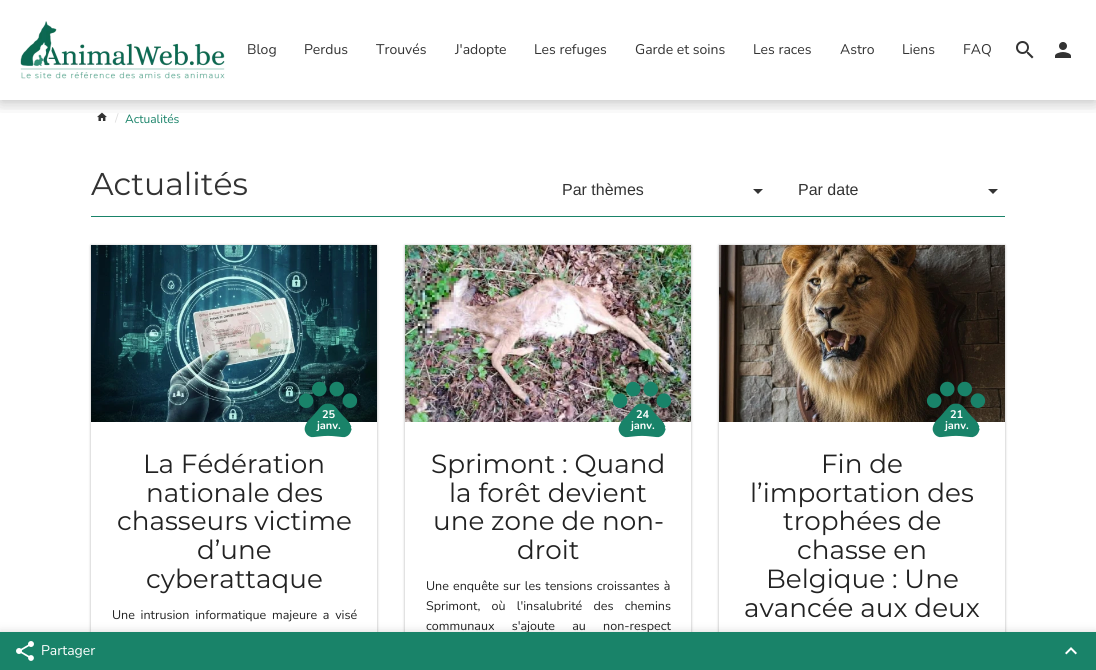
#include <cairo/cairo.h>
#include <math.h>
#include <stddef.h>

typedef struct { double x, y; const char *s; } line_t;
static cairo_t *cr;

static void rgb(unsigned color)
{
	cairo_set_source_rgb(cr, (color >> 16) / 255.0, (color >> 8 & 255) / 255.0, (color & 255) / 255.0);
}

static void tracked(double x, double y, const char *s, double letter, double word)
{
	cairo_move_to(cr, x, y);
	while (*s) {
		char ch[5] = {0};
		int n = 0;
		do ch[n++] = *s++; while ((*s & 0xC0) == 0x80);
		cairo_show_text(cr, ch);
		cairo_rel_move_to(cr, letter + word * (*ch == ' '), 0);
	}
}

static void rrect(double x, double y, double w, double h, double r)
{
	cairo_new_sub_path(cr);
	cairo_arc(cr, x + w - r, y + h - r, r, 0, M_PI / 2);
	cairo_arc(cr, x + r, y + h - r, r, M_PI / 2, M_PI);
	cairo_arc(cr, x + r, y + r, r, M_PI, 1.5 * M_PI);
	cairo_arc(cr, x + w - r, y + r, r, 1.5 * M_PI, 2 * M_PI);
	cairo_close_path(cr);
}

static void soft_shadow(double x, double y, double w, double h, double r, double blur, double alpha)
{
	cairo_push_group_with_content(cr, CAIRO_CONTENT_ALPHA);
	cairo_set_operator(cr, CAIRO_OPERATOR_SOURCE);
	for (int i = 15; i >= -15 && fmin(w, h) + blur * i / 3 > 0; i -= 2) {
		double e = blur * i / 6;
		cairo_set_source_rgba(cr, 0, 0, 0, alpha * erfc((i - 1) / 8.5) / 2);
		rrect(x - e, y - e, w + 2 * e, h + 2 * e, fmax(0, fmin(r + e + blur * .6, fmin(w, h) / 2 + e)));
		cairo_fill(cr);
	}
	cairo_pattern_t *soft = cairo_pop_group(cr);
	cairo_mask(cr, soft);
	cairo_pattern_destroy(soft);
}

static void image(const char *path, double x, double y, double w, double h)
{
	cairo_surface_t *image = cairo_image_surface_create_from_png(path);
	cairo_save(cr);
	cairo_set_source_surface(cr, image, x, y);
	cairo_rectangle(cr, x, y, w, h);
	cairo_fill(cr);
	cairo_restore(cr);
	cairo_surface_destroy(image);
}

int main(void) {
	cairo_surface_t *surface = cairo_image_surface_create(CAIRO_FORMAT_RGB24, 1096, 670);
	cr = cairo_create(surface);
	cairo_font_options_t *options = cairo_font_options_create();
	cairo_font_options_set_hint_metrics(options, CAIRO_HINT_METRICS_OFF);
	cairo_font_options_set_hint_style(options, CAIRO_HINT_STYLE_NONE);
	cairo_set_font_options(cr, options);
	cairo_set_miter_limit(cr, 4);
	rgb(0xffffff);
	cairo_paint(cr);
	image("img/4.png", 97, 112, 10, 9);
	cairo_save(cr);
	cairo_rectangle(cr, 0, 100, 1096, 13);
	cairo_clip(cr);
	rgb(0x000000);
	soft_shadow(0, 5, 1096, 100, 0, 10, 0.1);
	cairo_restore(cr);
	cairo_save(cr);
	cairo_rectangle(cr, 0, 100, 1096, 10);
	cairo_clip(cr);
	rgb(0x000000);
	soft_shadow(0, 0, 1096, 100, 0, 7.5, 0.2);
	cairo_restore(cr);
	image("img/1.png", 20, 21, 205, 58);
	image("img/2.png", 1016, 41, 18, 18);
	image("img/3.png", 1055, 42, 16, 16);
	rgb(0x198369);
	cairo_rectangle(cr, 91, 216, 914, 1);
	cairo_fill(cr);
	rgb(0x333333);
	cairo_new_path(cr);
	cairo_move_to(cr, 753, 189);
	cairo_line_to(cr, 763, 189);
	cairo_line_to(cr, 758, 194);
	cairo_close_path(cr);
	cairo_fill(cr);
	cairo_new_path(cr);
	cairo_move_to(cr, 988, 189);
	cairo_line_to(cr, 998, 189);
	cairo_line_to(cr, 993, 194);
	cairo_close_path(cr);
	cairo_fill(cr);
	cairo_save(cr);
	cairo_set_fill_rule(cr, CAIRO_FILL_RULE_EVEN_ODD);
	cairo_new_path(cr);
	cairo_move_to(cr, 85, 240);
	cairo_line_to(cr, 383, 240);
	cairo_line_to(cr, 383, 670);
	cairo_line_to(cr, 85, 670);
	cairo_close_path(cr);
	cairo_move_to(cr, 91, 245);
	cairo_line_to(cr, 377, 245);
	cairo_line_to(cr, 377, 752);
	cairo_line_to(cr, 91, 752);
	cairo_close_path(cr);
	cairo_clip(cr);
	rgb(0x000000);
	soft_shadow(91, 246, 286, 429, 0, 1.5, 0.2);
	cairo_restore(cr);
	cairo_save(cr);
	cairo_set_fill_rule(cr, CAIRO_FILL_RULE_EVEN_ODD);
	cairo_new_path(cr);
	cairo_move_to(cr, 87, 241);
	cairo_line_to(cr, 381, 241);
	cairo_line_to(cr, 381, 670);
	cairo_line_to(cr, 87, 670);
	cairo_close_path(cr);
	cairo_move_to(cr, 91, 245);
	cairo_line_to(cr, 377, 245);
	cairo_line_to(cr, 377, 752);
	cairo_line_to(cr, 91, 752);
	cairo_close_path(cr);
	cairo_clip(cr);
	rgb(0x000000);
	soft_shadow(91, 245, 286, 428, 0, 1, 0.14);
	cairo_restore(cr);
	image("img/5.png", 91, 245, 286, 177);
	image("img/6.png", 298, 381, 60, 57);
	cairo_save(cr);
	cairo_set_fill_rule(cr, CAIRO_FILL_RULE_EVEN_ODD);
	cairo_new_path(cr);
	cairo_move_to(cr, 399, 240);
	cairo_line_to(cr, 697, 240);
	cairo_line_to(cr, 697, 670);
	cairo_line_to(cr, 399, 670);
	cairo_close_path(cr);
	cairo_move_to(cr, 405, 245);
	cairo_line_to(cr, 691, 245);
	cairo_line_to(cr, 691, 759);
	cairo_line_to(cr, 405, 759);
	cairo_close_path(cr);
	cairo_clip(cr);
	rgb(0x000000);
	soft_shadow(405, 246, 286, 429, 0, 1.5, 0.2);
	cairo_restore(cr);
	cairo_save(cr);
	cairo_set_fill_rule(cr, CAIRO_FILL_RULE_EVEN_ODD);
	cairo_new_path(cr);
	cairo_move_to(cr, 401, 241);
	cairo_line_to(cr, 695, 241);
	cairo_line_to(cr, 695, 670);
	cairo_line_to(cr, 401, 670);
	cairo_close_path(cr);
	cairo_move_to(cr, 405, 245);
	cairo_line_to(cr, 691, 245);
	cairo_line_to(cr, 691, 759);
	cairo_line_to(cr, 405, 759);
	cairo_close_path(cr);
	cairo_clip(cr);
	rgb(0x000000);
	soft_shadow(405, 245, 286, 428, 0, 1, 0.14);
	cairo_restore(cr);
	image("img/7.png", 405, 245, 286, 177);
	image("img/8.png", 612, 381, 60, 57);
	cairo_save(cr);
	cairo_set_fill_rule(cr, CAIRO_FILL_RULE_EVEN_ODD);
	cairo_new_path(cr);
	cairo_move_to(cr, 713, 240);
	cairo_line_to(cr, 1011, 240);
	cairo_line_to(cr, 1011, 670);
	cairo_line_to(cr, 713, 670);
	cairo_close_path(cr);
	cairo_move_to(cr, 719, 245);
	cairo_line_to(cr, 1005, 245);
	cairo_line_to(cr, 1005, 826);
	cairo_line_to(cr, 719, 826);
	cairo_close_path(cr);
	cairo_clip(cr);
	rgb(0x000000);
	soft_shadow(719, 246, 286, 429, 0, 1.5, 0.2);
	cairo_restore(cr);
	cairo_save(cr);
	cairo_set_fill_rule(cr, CAIRO_FILL_RULE_EVEN_ODD);
	cairo_new_path(cr);
	cairo_move_to(cr, 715, 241);
	cairo_line_to(cr, 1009, 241);
	cairo_line_to(cr, 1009, 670);
	cairo_line_to(cr, 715, 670);
	cairo_close_path(cr);
	cairo_move_to(cr, 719, 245);
	cairo_line_to(cr, 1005, 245);
	cairo_line_to(cr, 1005, 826);
	cairo_line_to(cr, 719, 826);
	cairo_close_path(cr);
	cairo_clip(cr);
	rgb(0x000000);
	soft_shadow(719, 245, 286, 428, 0, 1, 0.14);
	cairo_restore(cr);
	image("img/9.png", 719, 245, 286, 177);
	image("img/10.png", 926, 381, 60, 57);
	rgb(0x000000);
	soft_shadow(0, 633, 1096, 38, 0, 5, 0.2);
	cairo_select_font_face(cr, "Nunito", CAIRO_FONT_SLANT_NORMAL, CAIRO_FONT_WEIGHT_NORMAL);
	cairo_set_font_size(cr, 14);
	rgb(0x333333);
	{
		static const line_t items[] = {
			{247, 54, "Blog"},
			{304, 54, "Perdus"},
			{376, 54, "Trouvés"},
			{455, 54, "J'adopte"},
			{534, 54, "Les refuges"},
			{635, 54, "Garde et soins"},
			{753, 54, "Les races"},
			{840, 54, "Astro"},
			{902, 54, "Liens"},
			{963, 54, "FAQ"},
		};
		for (size_t i = 0; i < sizeof items / sizeof *items; i++) {
			cairo_move_to(cr, items[i].x, items[i].y);
			cairo_show_text(cr, items[i].s);
		}
	}
	cairo_set_font_size(cr, 12);
	rgb(0xdddddd);
	cairo_move_to(cr, 115, 122);
	cairo_show_text(cr, "/");
	rgb(0x198369);
	cairo_move_to(cr, 125, 123);
	cairo_show_text(cr, "Actualités");
	cairo_select_font_face(cr, "Montserrat", CAIRO_FONT_SLANT_NORMAL, CAIRO_FONT_WEIGHT_NORMAL);
	cairo_set_font_size(cr, 31.5);
	rgb(0x333333);
	cairo_move_to(cr, 91, 195);
	cairo_show_text(cr, "Actualités");
	cairo_select_font_face(cr, "Liberation Sans", CAIRO_FONT_SLANT_NORMAL, CAIRO_FONT_WEIGHT_NORMAL);
	cairo_set_font_size(cr, 16);
	cairo_move_to(cr, 562, 195);
	cairo_show_text(cr, "Par thèmes");
	cairo_move_to(cr, 798, 195);
	cairo_show_text(cr, "Par date");
	cairo_select_font_face(cr, "Nunito", CAIRO_FONT_SLANT_NORMAL, CAIRO_FONT_WEIGHT_BOLD);
	cairo_set_font_size(cr, 11);
	rgb(0xffffff);
	cairo_move_to(cr, 322, 418);
	cairo_show_text(cr, "25");
	cairo_move_to(cr, 317, 429);
	cairo_show_text(cr, "janv.");
	cairo_select_font_face(cr, "Montserrat", CAIRO_FONT_SLANT_NORMAL, CAIRO_FONT_WEIGHT_NORMAL);
	cairo_set_font_size(cr, 26.25);
	rgb(0x222222);
	{
		static const line_t items[] = {
			{143, 473, "La Fédération"},
			{146, 502, "nationale des"},
			{117, 530, "chasseurs victime"},
			{197, 559, "d’une"},
			{146, 588, "cyberattaque"},
		};
		for (size_t i = 0; i < sizeof items / sizeof *items; i++) {
			cairo_move_to(cr, items[i].x, items[i].y);
			cairo_show_text(cr, items[i].s);
		}
	}
	cairo_select_font_face(cr, "Nunito", CAIRO_FONT_SLANT_NORMAL, CAIRO_FONT_WEIGHT_NORMAL);
	cairo_set_font_size(cr, 12.5);
	tracked(112, 619, "Une intrusion informatique majeure a visé", 0, 2.5);
	cairo_select_font_face(cr, "Nunito", CAIRO_FONT_SLANT_NORMAL, CAIRO_FONT_WEIGHT_BOLD);
	cairo_set_font_size(cr, 11);
	rgb(0xffffff);
	cairo_move_to(cr, 636, 418);
	cairo_show_text(cr, "24");
	cairo_move_to(cr, 631, 429);
	cairo_show_text(cr, "janv.");
	cairo_select_font_face(cr, "Montserrat", CAIRO_FONT_SLANT_NORMAL, CAIRO_FONT_WEIGHT_NORMAL);
	cairo_set_font_size(cr, 26.25);
	rgb(0x222222);
	{
		static const line_t items[] = {
			{431, 473, "Sprimont : Quand"},
			{449, 502, "la forêt devient"},
			{433, 530, "une zone de non-"},
			{517, 559, "droit"},
		};
		for (size_t i = 0; i < sizeof items / sizeof *items; i++) {
			cairo_move_to(cr, items[i].x, items[i].y);
			cairo_show_text(cr, items[i].s);
		}
	}
	cairo_select_font_face(cr, "Nunito", CAIRO_FONT_SLANT_NORMAL, CAIRO_FONT_WEIGHT_NORMAL);
	cairo_set_font_size(cr, 12.5);
	tracked(426, 590, "Une enquête sur les tensions croissantes à", 0, 1);
	tracked(426, 610, "Sprimont, où l'insalubrité des chemins", 0, 8);
	tracked(426, 630, "communaux s'ajoute au non-respect", 0, 14);
	cairo_select_font_face(cr, "Nunito", CAIRO_FONT_SLANT_NORMAL, CAIRO_FONT_WEIGHT_BOLD);
	cairo_set_font_size(cr, 11);
	rgb(0xffffff);
	cairo_move_to(cr, 950, 418);
	cairo_show_text(cr, "21");
	cairo_move_to(cr, 945, 429);
	cairo_show_text(cr, "janv.");
	cairo_select_font_face(cr, "Montserrat", CAIRO_FONT_SLANT_NORMAL, CAIRO_FONT_WEIGHT_NORMAL);
	cairo_set_font_size(cr, 26.25);
	rgb(0x222222);
	{
		static const line_t items[] = {
			{821, 473, "Fin de"},
			{750, 502, "l’importation des"},
			{783, 530, "trophées de"},
			{797, 559, "chasse en"},
			{766, 588, "Belgique : Une"},
			{744, 617, "avancée aux deux"},
		};
		for (size_t i = 0; i < sizeof items / sizeof *items; i++) {
			cairo_move_to(cr, items[i].x, items[i].y);
			cairo_show_text(cr, items[i].s);
		}
	}
	rgb(0x198369);
	cairo_rectangle(cr, 0, 632, 1096, 38);
	cairo_fill(cr);
	image("img/11.png", 16, 641, 18, 20);
	cairo_select_font_face(cr, "Nunito", CAIRO_FONT_SLANT_NORMAL, CAIRO_FONT_WEIGHT_NORMAL);
	cairo_set_font_size(cr, 14);
	rgb(0xffffff);
	cairo_move_to(cr, 41, 655);
	cairo_show_text(cr, "Partager");
	image("img/12.png", 1065, 647, 12, 8);
	cairo_surface_write_to_png(surface, "page.png");
	cairo_font_options_destroy(options);
	cairo_destroy(cr);
	cairo_surface_destroy(surface);
	return 0;
}
